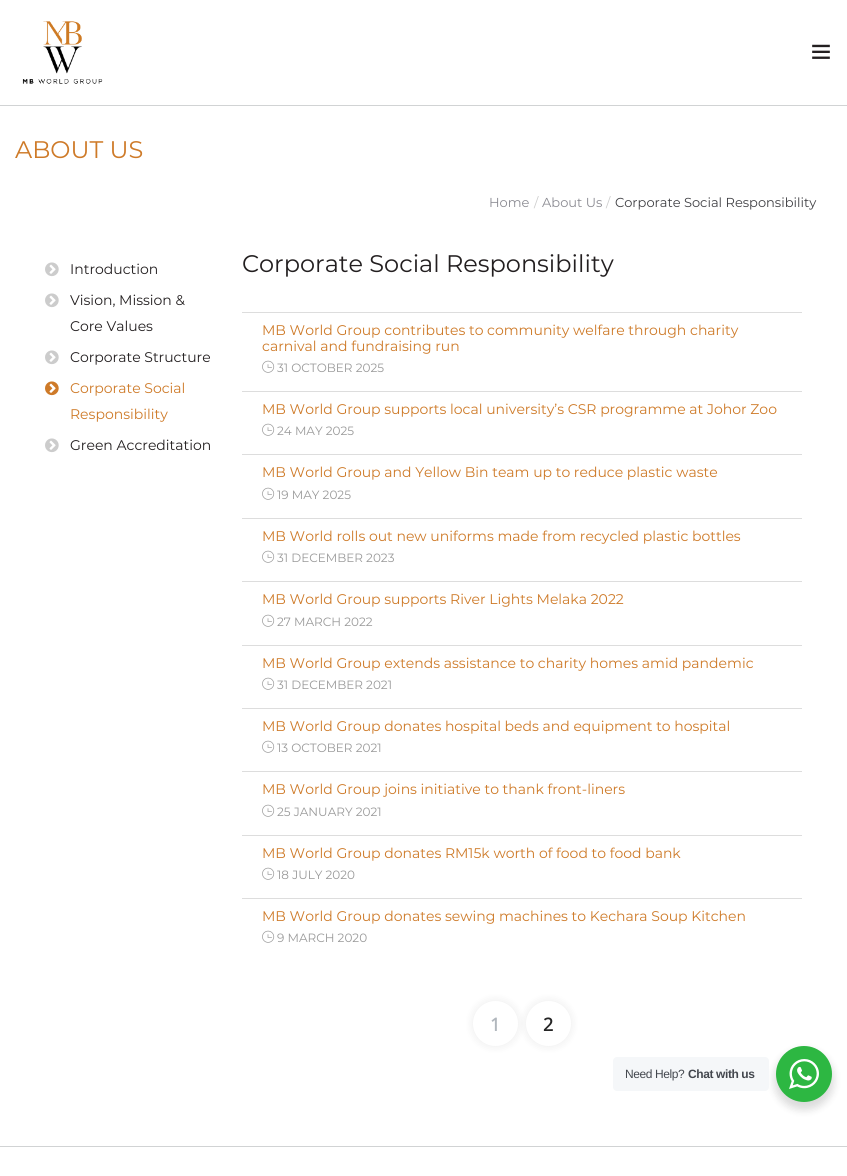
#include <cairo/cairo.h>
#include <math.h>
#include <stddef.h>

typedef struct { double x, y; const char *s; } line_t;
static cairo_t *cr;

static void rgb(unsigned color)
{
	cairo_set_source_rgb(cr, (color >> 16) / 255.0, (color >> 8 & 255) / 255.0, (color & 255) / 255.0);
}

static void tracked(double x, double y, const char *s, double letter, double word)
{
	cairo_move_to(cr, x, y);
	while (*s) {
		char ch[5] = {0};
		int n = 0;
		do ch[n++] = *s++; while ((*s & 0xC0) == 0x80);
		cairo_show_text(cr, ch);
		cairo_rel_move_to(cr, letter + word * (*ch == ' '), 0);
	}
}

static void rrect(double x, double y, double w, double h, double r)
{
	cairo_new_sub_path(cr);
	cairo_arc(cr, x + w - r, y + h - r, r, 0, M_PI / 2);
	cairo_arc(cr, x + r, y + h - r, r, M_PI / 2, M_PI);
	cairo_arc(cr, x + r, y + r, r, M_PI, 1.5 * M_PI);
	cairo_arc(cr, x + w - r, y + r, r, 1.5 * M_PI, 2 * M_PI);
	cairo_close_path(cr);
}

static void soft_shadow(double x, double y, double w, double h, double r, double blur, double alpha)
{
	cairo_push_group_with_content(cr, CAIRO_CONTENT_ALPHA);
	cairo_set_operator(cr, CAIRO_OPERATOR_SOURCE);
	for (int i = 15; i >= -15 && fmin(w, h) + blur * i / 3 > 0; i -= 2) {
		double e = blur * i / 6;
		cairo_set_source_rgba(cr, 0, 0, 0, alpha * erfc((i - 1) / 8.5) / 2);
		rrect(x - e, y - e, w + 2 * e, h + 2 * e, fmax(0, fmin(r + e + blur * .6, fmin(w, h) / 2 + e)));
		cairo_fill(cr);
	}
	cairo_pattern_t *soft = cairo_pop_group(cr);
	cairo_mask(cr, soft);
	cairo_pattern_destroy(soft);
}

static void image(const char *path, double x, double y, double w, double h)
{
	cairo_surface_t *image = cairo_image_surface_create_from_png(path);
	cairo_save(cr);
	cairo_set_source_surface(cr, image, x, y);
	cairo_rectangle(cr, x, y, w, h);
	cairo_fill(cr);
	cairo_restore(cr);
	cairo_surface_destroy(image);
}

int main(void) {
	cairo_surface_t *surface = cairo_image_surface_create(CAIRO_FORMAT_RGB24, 847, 1176);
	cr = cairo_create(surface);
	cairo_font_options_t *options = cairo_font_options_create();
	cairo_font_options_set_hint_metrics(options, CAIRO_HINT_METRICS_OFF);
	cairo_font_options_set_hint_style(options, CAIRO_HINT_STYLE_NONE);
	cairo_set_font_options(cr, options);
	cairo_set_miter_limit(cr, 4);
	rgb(0xffffff);
	cairo_paint(cr);
	image("img/1.png", 22, 21, 81, 63);
	image("img/2.png", 812, 44, 18, 15);
	rgb(0xd1d3d4);
	cairo_rectangle(cr, 0, 105, 847, 1);
	cairo_fill(cr);
	image("img/3.png", 45, 262, 14, 15);
	image("img/3.png", 45, 293, 14, 15);
	image("img/3.png", 45, 350, 14, 15);
	image("img/4.png", 45, 381, 14, 15);
	image("img/3.png", 45, 438, 14, 15);
	rgb(0xdddddd);
	cairo_rectangle(cr, 242, 312, 560, 1);
	cairo_fill(cr);
	image("img/5.png", 262, 360, 13, 13);
	cairo_rectangle(cr, 242, 391, 560, 1);
	cairo_fill(cr);
	image("img/5.png", 262, 423, 13, 13);
	cairo_rectangle(cr, 242, 454, 560, 1);
	cairo_fill(cr);
	image("img/5.png", 262, 487, 13, 13);
	cairo_rectangle(cr, 242, 518, 560, 1);
	cairo_fill(cr);
	image("img/5.png", 262, 550, 13, 13);
	cairo_rectangle(cr, 242, 581, 560, 1);
	cairo_fill(cr);
	image("img/5.png", 262, 614, 13, 13);
	cairo_rectangle(cr, 242, 645, 560, 1);
	cairo_fill(cr);
	image("img/5.png", 262, 677, 13, 13);
	cairo_rectangle(cr, 242, 708, 560, 1);
	cairo_fill(cr);
	image("img/5.png", 262, 740, 13, 13);
	cairo_rectangle(cr, 242, 771, 560, 1);
	cairo_fill(cr);
	image("img/5.png", 262, 804, 13, 13);
	cairo_rectangle(cr, 242, 835, 560, 1);
	cairo_fill(cr);
	image("img/5.png", 262, 867, 13, 13);
	cairo_rectangle(cr, 242, 898, 560, 1);
	cairo_fill(cr);
	image("img/5.png", 262, 930, 13, 13);
	rgb(0x000000);
	soft_shadow(526, 1001, 45, 45, 22.5, 5, 0.08);
	rgb(0xffffff);
	cairo_arc(cr, 548.5, 1023.5, 22.5, 0, 2 * M_PI);
	cairo_fill(cr);
	rgb(0x000000);
	soft_shadow(473, 1001, 45, 45, 22.5, 5, 0.08);
	rgb(0xffffff);
	cairo_arc(cr, 495.5, 1023.5, 22.5, 0, 2 * M_PI);
	cairo_fill(cr);
	rgb(0xd1d3d4);
	cairo_rectangle(cr, 0, 1146, 847, 1);
	cairo_fill(cr);
	rgb(0x000000);
	soft_shadow(774, 1050, 60, 60, 30, 4, 0.14);
	rgb(0xf5f7f9);
	rrect(613, 1057, 156, 34, 4);
	cairo_fill(cr);
	rgb(0x2db742);
	cairo_arc(cr, 804, 1074, 28, 0, 2 * M_PI);
	cairo_fill(cr);
	image("img/6.png", 789, 1059, 30, 30);
	cairo_select_font_face(cr, "Montserrat", CAIRO_FONT_SLANT_NORMAL, CAIRO_FONT_WEIGHT_NORMAL);
	cairo_set_font_size(cr, 24);
	rgb(0xce7a28);
	cairo_move_to(cr, 15, 158);
	cairo_show_text(cr, "ABOUT US");
	cairo_set_font_size(cr, 13);
	rgb(0x8b8b92);
	cairo_move_to(cr, 489, 207);
	cairo_show_text(cr, "Home");
	rgb(0xcccccc);
	cairo_move_to(cr, 534, 207);
	cairo_show_text(cr, "/");
	rgb(0x8b8b92);
	cairo_move_to(cr, 542, 207);
	cairo_show_text(cr, "About Us");
	rgb(0xcccccc);
	cairo_move_to(cr, 606, 207);
	cairo_show_text(cr, "/");
	rgb(0x404044);
	cairo_move_to(cr, 615, 207);
	cairo_show_text(cr, "Corporate Social Responsibility");
	cairo_set_font_size(cr, 14);
	rgb(0x231f20);
	{
		static const line_t items[] = {
			{70, 274, "Introduction"},
			{70, 305, "Vision, Mission &"},
			{70, 331, "Core Values"},
			{70, 362, "Corporate Structure"},
		};
		for (size_t i = 0; i < sizeof items / sizeof *items; i++) {
			cairo_move_to(cr, items[i].x, items[i].y);
			cairo_show_text(cr, items[i].s);
		}
	}
	rgb(0xce7a28);
	cairo_move_to(cr, 70, 393);
	cairo_show_text(cr, "Corporate Social");
	cairo_move_to(cr, 70, 419);
	cairo_show_text(cr, "Responsibility");
	rgb(0x231f20);
	cairo_move_to(cr, 70, 450);
	cairo_show_text(cr, "Green Accreditation");
	cairo_set_font_size(cr, 24);
	cairo_move_to(cr, 242, 272);
	cairo_show_text(cr, "Corporate Social Responsibility");
	cairo_set_font_size(cr, 14);
	rgb(0xce7a28);
	cairo_move_to(cr, 262, 335);
	cairo_show_text(cr, "MB World Group contributes to community welfare through charity");
	cairo_move_to(cr, 262, 351);
	cairo_show_text(cr, "carnival and fundraising run");
	cairo_set_font_size(cr, 12);
	rgb(0x999999);
	cairo_move_to(cr, 277, 372);
	cairo_show_text(cr, "31 OCTOBER 2025");
	cairo_set_font_size(cr, 14);
	rgb(0xce7a28);
	cairo_move_to(cr, 262, 414);
	cairo_show_text(cr, "MB World Group supports local university’s CSR programme at Johor Zoo");
	cairo_set_font_size(cr, 12);
	rgb(0x999999);
	cairo_move_to(cr, 277, 435);
	cairo_show_text(cr, "24 MAY 2025");
	cairo_set_font_size(cr, 14);
	rgb(0xce7a28);
	cairo_move_to(cr, 262, 477);
	cairo_show_text(cr, "MB World Group and Yellow Bin team up to reduce plastic waste");
	cairo_set_font_size(cr, 12);
	rgb(0x999999);
	cairo_move_to(cr, 277, 499);
	cairo_show_text(cr, "19 MAY 2025");
	cairo_set_font_size(cr, 14);
	rgb(0xce7a28);
	cairo_move_to(cr, 262, 541);
	cairo_show_text(cr, "MB World rolls out new uniforms made from recycled plastic bottles");
	cairo_set_font_size(cr, 12);
	rgb(0x999999);
	cairo_move_to(cr, 277, 562);
	cairo_show_text(cr, "31 DECEMBER 2023");
	cairo_set_font_size(cr, 14);
	rgb(0xce7a28);
	cairo_move_to(cr, 262, 604);
	cairo_show_text(cr, "MB World Group supports River Lights Melaka 2022");
	cairo_set_font_size(cr, 12);
	rgb(0x999999);
	cairo_move_to(cr, 277, 626);
	cairo_show_text(cr, "27 MARCH 2022");
	cairo_set_font_size(cr, 14);
	rgb(0xce7a28);
	cairo_move_to(cr, 262, 668);
	cairo_show_text(cr, "MB World Group extends assistance to charity homes amid pandemic");
	cairo_set_font_size(cr, 12);
	rgb(0x999999);
	cairo_move_to(cr, 277, 689);
	cairo_show_text(cr, "31 DECEMBER 2021");
	cairo_set_font_size(cr, 14);
	rgb(0xce7a28);
	cairo_move_to(cr, 262, 731);
	cairo_show_text(cr, "MB World Group donates hospital beds and equipment to hospital");
	cairo_set_font_size(cr, 12);
	rgb(0x999999);
	cairo_move_to(cr, 277, 752);
	cairo_show_text(cr, "13 OCTOBER 2021");
	cairo_set_font_size(cr, 14);
	rgb(0xce7a28);
	cairo_move_to(cr, 262, 794);
	cairo_show_text(cr, "MB World Group joins initiative to thank front-liners");
	cairo_set_font_size(cr, 12);
	rgb(0x999999);
	cairo_move_to(cr, 277, 816);
	cairo_show_text(cr, "25 JANUARY 2021");
	cairo_set_font_size(cr, 14);
	rgb(0xce7a28);
	cairo_move_to(cr, 262, 858);
	cairo_show_text(cr, "MB World Group donates RM15k worth of food to food bank");
	cairo_set_font_size(cr, 12);
	rgb(0x999999);
	cairo_move_to(cr, 277, 879);
	cairo_show_text(cr, "18 JULY 2020");
	cairo_set_font_size(cr, 14);
	rgb(0xce7a28);
	cairo_move_to(cr, 262, 921);
	cairo_show_text(cr, "MB World Group donates sewing machines to Kechara Soup Kitchen");
	cairo_set_font_size(cr, 12);
	rgb(0x999999);
	cairo_move_to(cr, 277, 942);
	cairo_show_text(cr, "9 MARCH 2020");
	cairo_select_font_face(cr, "Open Sans", CAIRO_FONT_SLANT_NORMAL, CAIRO_FONT_WEIGHT_BOLD);
	cairo_set_font_size(cr, 18);
	rgb(0xb1b7bd);
	cairo_move_to(cr, 490, 1031);
	cairo_show_text(cr, "1");
	rgb(0x252525);
	cairo_move_to(cr, 543, 1031);
	cairo_show_text(cr, "2");
	cairo_select_font_face(cr, "Liberation Sans", CAIRO_FONT_SLANT_NORMAL, CAIRO_FONT_WEIGHT_NORMAL);
	cairo_set_font_size(cr, 12);
	rgb(0x43474e);
	tracked(625, 1078, "Need Help?", -0.4, 0);
	cairo_select_font_face(cr, "Liberation Sans", CAIRO_FONT_SLANT_NORMAL, CAIRO_FONT_WEIGHT_BOLD);
	tracked(688, 1078, "Chat with us", -0.4, 0);
	cairo_surface_write_to_png(surface, "page.png");
	cairo_font_options_destroy(options);
	cairo_destroy(cr);
	cairo_surface_destroy(surface);
	return 0;
}
